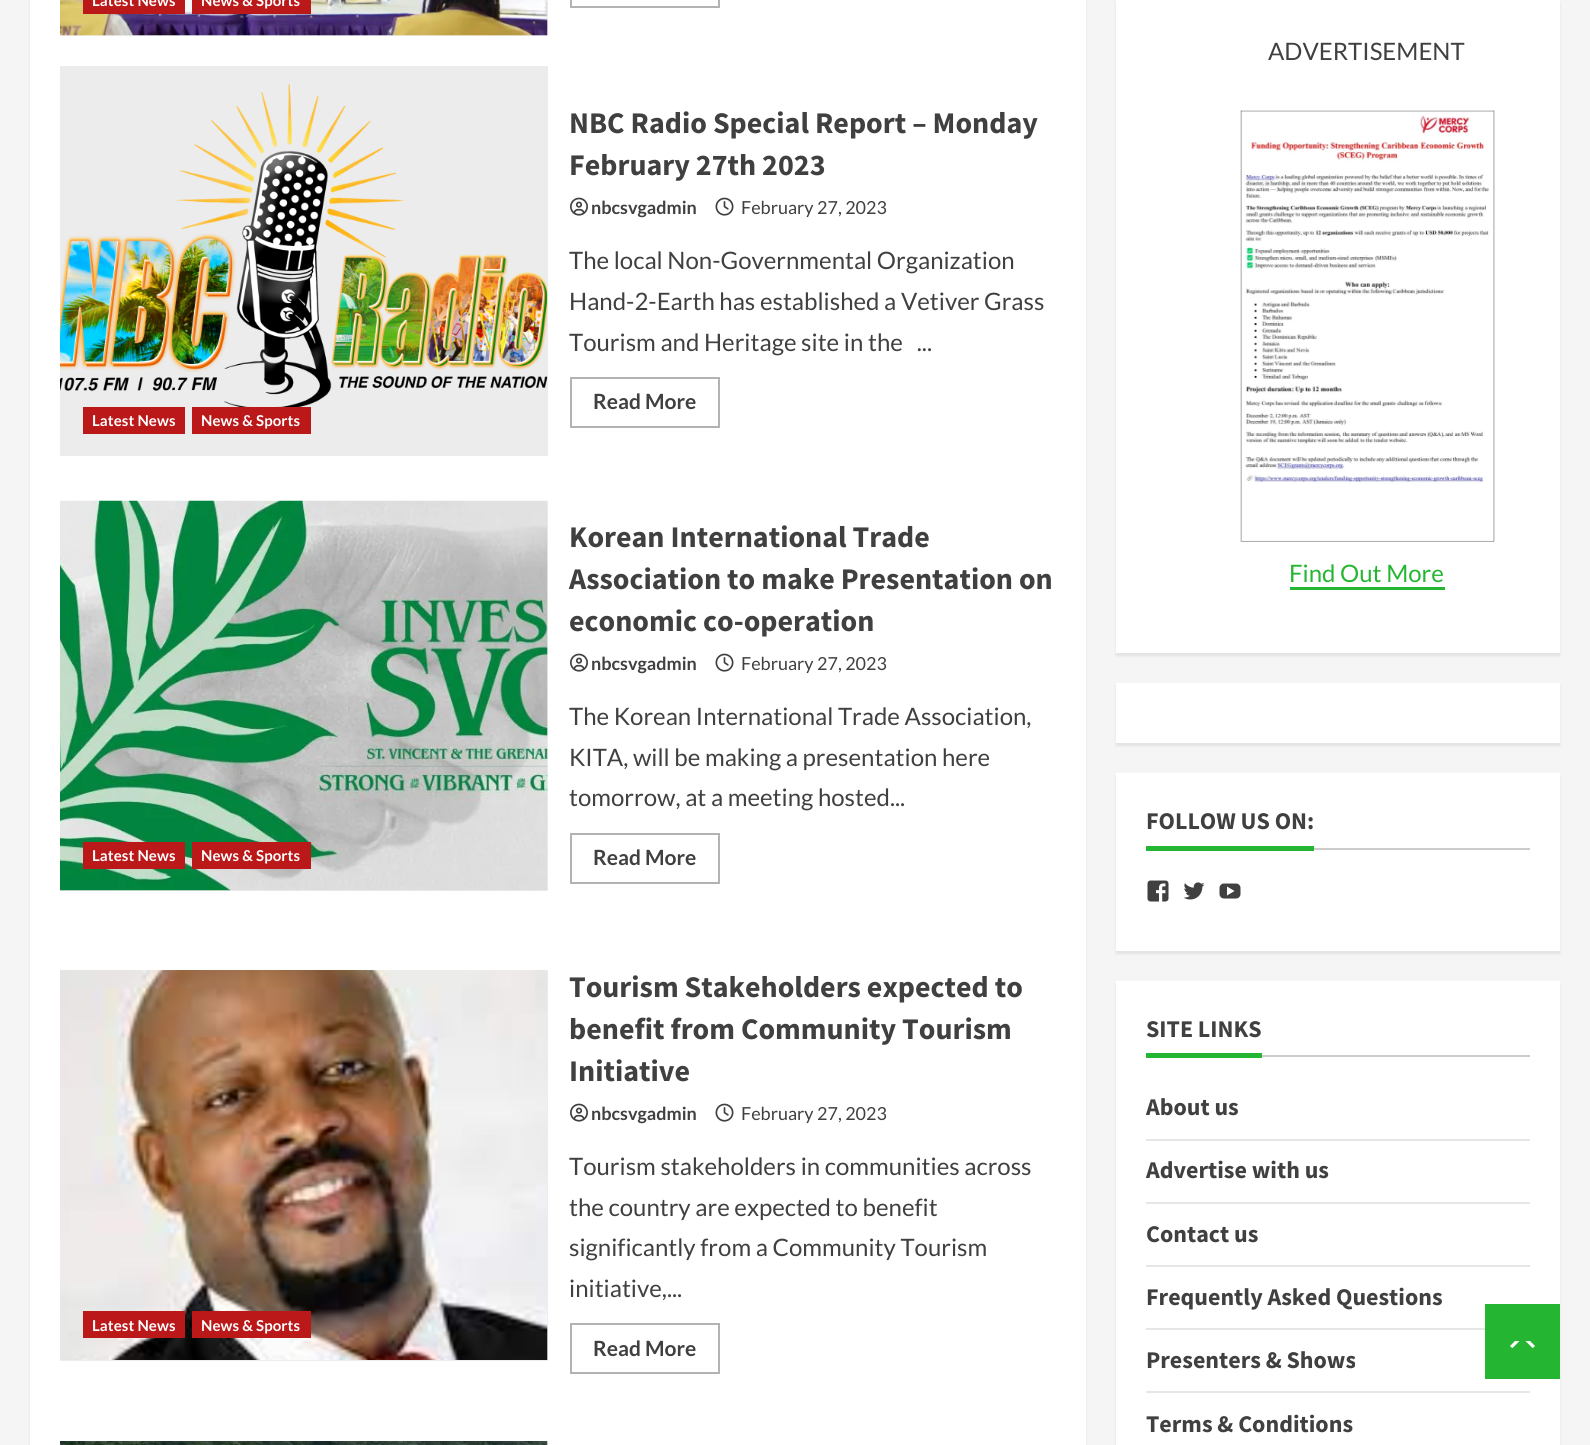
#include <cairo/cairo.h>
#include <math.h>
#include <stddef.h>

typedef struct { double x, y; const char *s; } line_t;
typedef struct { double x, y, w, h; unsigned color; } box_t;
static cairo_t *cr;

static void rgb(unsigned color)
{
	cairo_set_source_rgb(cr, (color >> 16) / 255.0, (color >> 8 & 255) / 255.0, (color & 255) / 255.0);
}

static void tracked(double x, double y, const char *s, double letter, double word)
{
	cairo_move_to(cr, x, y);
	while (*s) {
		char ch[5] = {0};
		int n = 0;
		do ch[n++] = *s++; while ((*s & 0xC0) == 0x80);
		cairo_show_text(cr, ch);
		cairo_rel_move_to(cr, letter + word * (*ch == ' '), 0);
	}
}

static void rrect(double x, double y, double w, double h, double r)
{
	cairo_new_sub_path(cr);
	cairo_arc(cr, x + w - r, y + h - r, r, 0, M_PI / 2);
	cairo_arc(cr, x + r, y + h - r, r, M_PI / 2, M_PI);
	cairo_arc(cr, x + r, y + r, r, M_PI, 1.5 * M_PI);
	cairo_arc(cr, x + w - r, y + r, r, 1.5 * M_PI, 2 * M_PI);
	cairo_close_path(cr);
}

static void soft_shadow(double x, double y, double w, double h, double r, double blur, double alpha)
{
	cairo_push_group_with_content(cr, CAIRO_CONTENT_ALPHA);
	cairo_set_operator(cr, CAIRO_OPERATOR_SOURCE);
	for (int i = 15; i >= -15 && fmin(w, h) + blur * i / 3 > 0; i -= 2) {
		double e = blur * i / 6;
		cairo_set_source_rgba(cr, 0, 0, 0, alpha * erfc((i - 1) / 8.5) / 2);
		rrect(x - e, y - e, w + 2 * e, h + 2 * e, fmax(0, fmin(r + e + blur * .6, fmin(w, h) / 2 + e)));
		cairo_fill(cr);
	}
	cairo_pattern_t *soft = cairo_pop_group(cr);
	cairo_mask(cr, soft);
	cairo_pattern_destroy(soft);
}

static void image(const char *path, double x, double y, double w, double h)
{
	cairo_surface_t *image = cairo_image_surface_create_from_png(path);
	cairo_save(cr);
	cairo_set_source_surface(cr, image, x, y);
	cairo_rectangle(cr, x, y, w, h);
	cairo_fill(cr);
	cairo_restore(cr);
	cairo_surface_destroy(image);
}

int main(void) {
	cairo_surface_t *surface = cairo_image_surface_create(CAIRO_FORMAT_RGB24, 1590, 1445);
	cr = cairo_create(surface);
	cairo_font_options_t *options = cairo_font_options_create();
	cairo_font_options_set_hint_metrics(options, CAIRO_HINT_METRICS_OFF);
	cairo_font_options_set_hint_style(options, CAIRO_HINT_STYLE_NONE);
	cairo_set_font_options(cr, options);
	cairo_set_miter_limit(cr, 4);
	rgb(0xf5f5f5);
	cairo_paint(cr);
	rgb(0x000000);
	soft_shadow(30, -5, 1056, 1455, 0, 1.5, 0.08);
	rgb(0xffffff);
	cairo_rectangle(cr, 30, 0, 1056, 1445);
	cairo_fill(cr);
	rgb(0xececec);
	cairo_rectangle(cr, 60, 0, 488, 36);
	cairo_fill(cr);
	image("img/1.png", 60, 0, 488, 36);
	rgb(0xbb1919);
	cairo_rectangle(cr, 83, 0, 102, 14);
	cairo_fill(cr);
	cairo_rectangle(cr, 192, 0, 119, 14);
	cairo_fill(cr);
	cairo_rectangle(cr, 571, -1, 148, 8);
	rgb(0xb3b3b3);
	cairo_stroke(cr);
	image("img/2.png", 570, 197, 18, 19);
	image("img/3.png", 715, 197, 19, 19);
	cairo_rectangle(cr, 571, 378, 148, 49);
	cairo_stroke(cr);
	rgb(0xececec);
	cairo_rectangle(cr, 60, 66, 488, 390);
	cairo_fill(cr);
	image("img/4.png", 60, 83, 488, 324);
	{
		static const box_t items[] = {
			{83, 407, 102, 27, 0xbb1919},
			{192, 407, 119, 27, 0xbb1919},
			{60, 501, 488, 390, 0xececec},
		};
		for (size_t i = 0; i < sizeof items / sizeof *items; i++) {
			rgb(items[i].color);
			cairo_rectangle(cr, items[i].x, items[i].y, items[i].w, items[i].h);
			cairo_fill(cr);
		}
	}
	image("img/5.png", 60, 500, 488, 391);
	rgb(0xbb1919);
	cairo_rectangle(cr, 83, 842, 102, 27);
	cairo_fill(cr);
	cairo_rectangle(cr, 192, 842, 119, 27);
	cairo_fill(cr);
	image("img/2.png", 570, 653, 18, 19);
	image("img/3.png", 715, 653, 19, 19);
	cairo_rectangle(cr, 571, 834, 148, 49);
	rgb(0xb3b3b3);
	cairo_stroke(cr);
	rgb(0xececec);
	cairo_rectangle(cr, 60, 971, 488, 390);
	cairo_fill(cr);
	image("img/6.png", 60, 970, 488, 390);
	rgb(0xbb1919);
	cairo_rectangle(cr, 83, 1311, 102, 27);
	cairo_fill(cr);
	cairo_rectangle(cr, 192, 1311, 119, 27);
	cairo_fill(cr);
	image("img/2.png", 570, 1103, 18, 19);
	image("img/3.png", 715, 1103, 19, 19);
	cairo_rectangle(cr, 571, 1324, 148, 49);
	rgb(0xb3b3b3);
	cairo_stroke(cr);
	rgb(0xececec);
	cairo_rectangle(cr, 547, 1442, 1, 3);
	cairo_fill(cr);
	image("img/7.png", 60, 1441, 488, 4);
	rgb(0x000000);
	soft_shadow(1116, 3, 444, 653, 0, 1.5, 0.08);
	rgb(0xffffff);
	cairo_rectangle(cr, 1116, 0, 444, 653);
	cairo_fill(cr);
	image("img/8.png", 1240, 110, 255, 432);
	rgb(0x24b532);
	cairo_rectangle(cr, 1290, 587, 155, 3);
	cairo_fill(cr);
	rgb(0x000000);
	soft_shadow(1116, 686, 444, 60, 0, 1.5, 0.08);
	rgb(0xffffff);
	cairo_rectangle(cr, 1116, 683, 444, 60);
	cairo_fill(cr);
	rgb(0x000000);
	soft_shadow(1116, 776, 444, 178, 0, 1.5, 0.08);
	{
		static const box_t items[] = {
			{1116, 773, 444, 178, 0xffffff},
			{1314, 848, 216, 2, 0xcccccc},
			{1146, 846, 168, 5, 0x24b532},
		};
		for (size_t i = 0; i < sizeof items / sizeof *items; i++) {
			rgb(items[i].color);
			cairo_rectangle(cr, items[i].x, items[i].y, items[i].w, items[i].h);
			cairo_fill(cr);
		}
	}
	image("img/9.png", 1147, 880, 22, 22);
	image("img/10.png", 1183, 882, 22, 18);
	image("img/11.png", 1219, 883, 22, 16);
	rgb(0x000000);
	soft_shadow(1116, 984, 444, 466, 0, 1.5, 0.08);
	{
		static const box_t items[] = {
			{1116, 981, 444, 464, 0xffffff},
			{1262, 1055, 268, 2, 0xcccccc},
			{1146, 1053, 116, 5, 0x24b532},
			{1146, 1139, 384, 2, 0xe6e6e6},
			{1146, 1202, 384, 2, 0xe6e6e6},
			{1146, 1265, 384, 2, 0xe6e6e6},
			{1146, 1328, 339, 2, 0xe6e6e6},
			{1146, 1391, 384, 2, 0xe6e6e6},
			{1485, 1304, 75, 75, 0x24b532},
		};
		for (size_t i = 0; i < sizeof items / sizeof *items; i++) {
			rgb(items[i].color);
			cairo_rectangle(cr, items[i].x, items[i].y, items[i].w, items[i].h);
			cairo_fill(cr);
		}
	}
	rgb(0xffffff);
	cairo_new_path(cr);
	cairo_move_to(cr, 1515, 1348.5);
	cairo_line_to(cr, 1530, 1348.5);
	cairo_curve_to(cr, 1532, 1348.5, 1534, 1347.5, 1535, 1346);
	cairo_line_to(cr, 1530, 1341);
	cairo_line_to(cr, 1515, 1341);
	cairo_line_to(cr, 1510, 1346);
	cairo_curve_to(cr, 1511, 1347.5, 1513, 1348.5, 1515, 1348.5);
	cairo_close_path(cr);
	cairo_fill(cr);
	rgb(0x24b532);
	cairo_new_path(cr);
	cairo_move_to(cr, 1537.5, 1353);
	cairo_line_to(cr, 1507.5, 1353);
	cairo_line_to(cr, 1522.5, 1338);
	cairo_close_path(cr);
	cairo_fill(cr);
	cairo_select_font_face(cr, "Lato", CAIRO_FONT_SLANT_NORMAL, CAIRO_FONT_WEIGHT_BOLD);
	cairo_set_font_size(cr, 15);
	rgb(0xffffff);
	tracked(92, 6, "Latest News", 0.1, 0);
	tracked(201, 6, "News & Sports", 0.1, 0);
	cairo_select_font_face(cr, "Source Sans Pro", CAIRO_FONT_SLANT_NORMAL, CAIRO_FONT_WEIGHT_BOLD);
	cairo_set_font_size(cr, 30);
	rgb(0x404040);
	cairo_move_to(cr, 569, 133);
	cairo_show_text(cr, "NBC Radio Special Report – Monday");
	cairo_move_to(cr, 569, 175);
	cairo_show_text(cr, "February 27th 2023");
	cairo_select_font_face(cr, "Lato", CAIRO_FONT_SLANT_NORMAL, CAIRO_FONT_WEIGHT_BOLD);
	cairo_set_font_size(cr, 18);
	cairo_move_to(cr, 591, 214);
	cairo_show_text(cr, "nbcsvgadmin");
	cairo_select_font_face(cr, "Lato", CAIRO_FONT_SLANT_NORMAL, CAIRO_FONT_WEIGHT_NORMAL);
	cairo_move_to(cr, 741, 214);
	cairo_show_text(cr, "February 27, 2023");
	cairo_set_font_size(cr, 24);
	{
		static const line_t items[] = {
			{569, 269, "The local Non-Governmental Organization"},
			{569, 310, "Hand-2-Earth has established a Vetiver Grass"},
			{569, 351, "Tourism and Heritage site in the   ..."},
		};
		for (size_t i = 0; i < sizeof items / sizeof *items; i++) {
			cairo_move_to(cr, items[i].x, items[i].y);
			cairo_show_text(cr, items[i].s);
		}
	}
	cairo_select_font_face(cr, "Lato", CAIRO_FONT_SLANT_NORMAL, CAIRO_FONT_WEIGHT_BOLD);
	cairo_set_font_size(cr, 21);
	cairo_move_to(cr, 593, 409);
	cairo_show_text(cr, "Read More");
	cairo_set_font_size(cr, 15);
	rgb(0xffffff);
	{
		static const line_t items[] = {
			{92, 426, "Latest News"},
			{201, 426, "News & Sports"},
			{92, 861, "Latest News"},
			{201, 861, "News & Sports"},
		};
		for (size_t i = 0; i < sizeof items / sizeof *items; i++) {
			tracked(items[i].x, items[i].y, items[i].s, 0.1, 0);
		}
	}
	cairo_select_font_face(cr, "Source Sans Pro", CAIRO_FONT_SLANT_NORMAL, CAIRO_FONT_WEIGHT_BOLD);
	cairo_set_font_size(cr, 30);
	rgb(0x404040);
	{
		static const line_t items[] = {
			{569, 547, "Korean International Trade"},
			{569, 589, "Association to make Presentation on"},
			{569, 631, "economic co-operation"},
		};
		for (size_t i = 0; i < sizeof items / sizeof *items; i++) {
			cairo_move_to(cr, items[i].x, items[i].y);
			cairo_show_text(cr, items[i].s);
		}
	}
	cairo_select_font_face(cr, "Lato", CAIRO_FONT_SLANT_NORMAL, CAIRO_FONT_WEIGHT_BOLD);
	cairo_set_font_size(cr, 18);
	cairo_move_to(cr, 591, 670);
	cairo_show_text(cr, "nbcsvgadmin");
	cairo_select_font_face(cr, "Lato", CAIRO_FONT_SLANT_NORMAL, CAIRO_FONT_WEIGHT_NORMAL);
	cairo_move_to(cr, 741, 670);
	cairo_show_text(cr, "February 27, 2023");
	cairo_set_font_size(cr, 24);
	{
		static const line_t items[] = {
			{569, 725, "The Korean International Trade Association,"},
			{569, 766, "KITA, will be making a presentation here"},
			{569, 806, "tomorrow, at a meeting hosted..."},
		};
		for (size_t i = 0; i < sizeof items / sizeof *items; i++) {
			cairo_move_to(cr, items[i].x, items[i].y);
			cairo_show_text(cr, items[i].s);
		}
	}
	cairo_select_font_face(cr, "Lato", CAIRO_FONT_SLANT_NORMAL, CAIRO_FONT_WEIGHT_BOLD);
	cairo_set_font_size(cr, 21);
	cairo_move_to(cr, 593, 865);
	cairo_show_text(cr, "Read More");
	cairo_set_font_size(cr, 15);
	rgb(0xffffff);
	tracked(92, 1331, "Latest News", 0.1, 0);
	tracked(201, 1331, "News & Sports", 0.1, 0);
	cairo_select_font_face(cr, "Source Sans Pro", CAIRO_FONT_SLANT_NORMAL, CAIRO_FONT_WEIGHT_BOLD);
	cairo_set_font_size(cr, 30);
	rgb(0x404040);
	{
		static const line_t items[] = {
			{569, 997, "Tourism Stakeholders expected to"},
			{569, 1039, "benefit from Community Tourism"},
			{569, 1081, "Initiative"},
		};
		for (size_t i = 0; i < sizeof items / sizeof *items; i++) {
			cairo_move_to(cr, items[i].x, items[i].y);
			cairo_show_text(cr, items[i].s);
		}
	}
	cairo_select_font_face(cr, "Lato", CAIRO_FONT_SLANT_NORMAL, CAIRO_FONT_WEIGHT_BOLD);
	cairo_set_font_size(cr, 18);
	cairo_move_to(cr, 591, 1120);
	cairo_show_text(cr, "nbcsvgadmin");
	cairo_select_font_face(cr, "Lato", CAIRO_FONT_SLANT_NORMAL, CAIRO_FONT_WEIGHT_NORMAL);
	cairo_move_to(cr, 741, 1120);
	cairo_show_text(cr, "February 27, 2023");
	cairo_set_font_size(cr, 24);
	{
		static const line_t items[] = {
			{569, 1175, "Tourism stakeholders in communities across"},
			{569, 1216, "the country are expected to benefit"},
			{569, 1256, "significantly from a Community Tourism"},
			{569, 1297, "initiative,..."},
		};
		for (size_t i = 0; i < sizeof items / sizeof *items; i++) {
			cairo_move_to(cr, items[i].x, items[i].y);
			cairo_show_text(cr, items[i].s);
		}
	}
	cairo_select_font_face(cr, "Lato", CAIRO_FONT_SLANT_NORMAL, CAIRO_FONT_WEIGHT_BOLD);
	cairo_set_font_size(cr, 21);
	cairo_move_to(cr, 593, 1356);
	cairo_show_text(cr, "Read More");
	cairo_select_font_face(cr, "Lato", CAIRO_FONT_SLANT_NORMAL, CAIRO_FONT_WEIGHT_NORMAL);
	cairo_set_font_size(cr, 24);
	cairo_move_to(cr, 1268, 60);
	cairo_show_text(cr, "ADVERTISEMENT");
	rgb(0x24b532);
	cairo_move_to(cr, 1289, 582);
	cairo_show_text(cr, "Find Out More");
	cairo_select_font_face(cr, "Source Sans Pro", CAIRO_FONT_SLANT_NORMAL, CAIRO_FONT_WEIGHT_BOLD);
	rgb(0x404040);
	{
		static const line_t items[] = {
			{1146, 829, "FOLLOW US ON:"},
			{1146, 1037, "SITE LINKS"},
			{1146, 1115, "About us"},
			{1146, 1178, "Advertise with us"},
			{1146, 1242, "Contact us"},
			{1146, 1305, "Frequently Asked Questions"},
			{1146, 1368, "Presenters & Shows"},
			{1146, 1432, "Terms & Conditions"},
		};
		for (size_t i = 0; i < sizeof items / sizeof *items; i++) {
			cairo_move_to(cr, items[i].x, items[i].y);
			cairo_show_text(cr, items[i].s);
		}
	}
	cairo_surface_write_to_png(surface, "page.png");
	cairo_font_options_destroy(options);
	cairo_destroy(cr);
	cairo_surface_destroy(surface);
	return 0;
}
